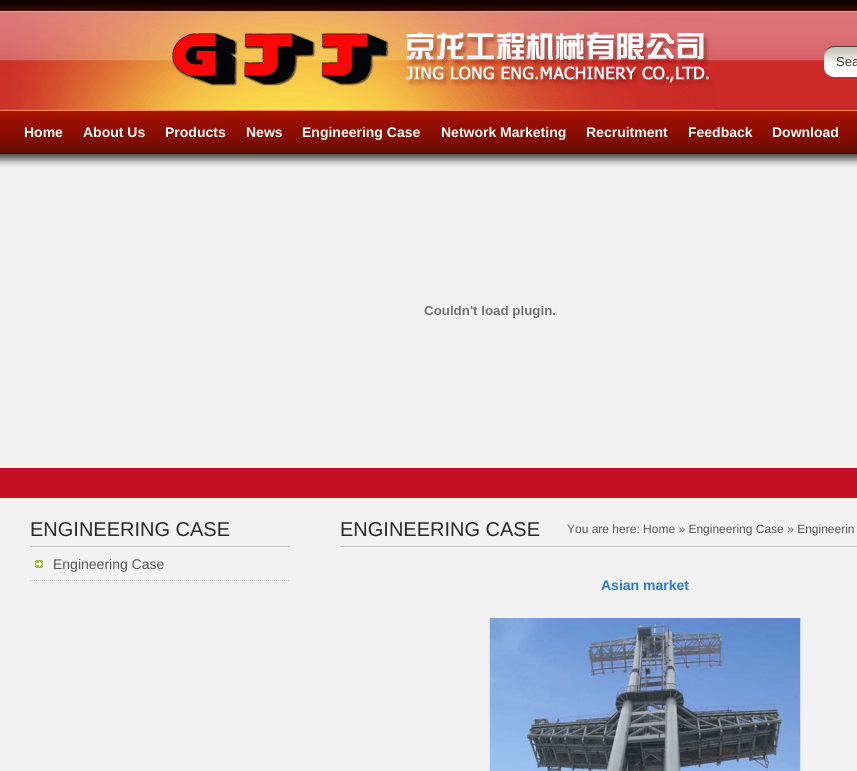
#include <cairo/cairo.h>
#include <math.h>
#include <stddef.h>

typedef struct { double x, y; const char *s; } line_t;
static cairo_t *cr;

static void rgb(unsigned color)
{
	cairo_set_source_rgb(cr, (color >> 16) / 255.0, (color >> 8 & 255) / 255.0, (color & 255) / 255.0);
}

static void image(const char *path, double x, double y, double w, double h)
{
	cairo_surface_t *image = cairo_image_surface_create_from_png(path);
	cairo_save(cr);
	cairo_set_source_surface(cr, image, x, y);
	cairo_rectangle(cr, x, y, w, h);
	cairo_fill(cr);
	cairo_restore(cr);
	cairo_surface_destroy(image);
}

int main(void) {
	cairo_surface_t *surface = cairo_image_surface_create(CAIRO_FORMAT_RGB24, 857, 771);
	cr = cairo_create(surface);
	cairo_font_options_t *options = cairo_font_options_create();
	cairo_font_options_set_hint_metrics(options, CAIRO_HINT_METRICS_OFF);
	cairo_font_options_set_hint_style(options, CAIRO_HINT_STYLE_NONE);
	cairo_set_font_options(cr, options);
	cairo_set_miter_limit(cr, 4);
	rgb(0xf2f2f2);
	cairo_paint(cr);
	image("img/1.png", 0, 0, 857, 167);
	image("img/2.png", 0, 12, 150, 98);
	image("img/3.png", 150, 12, 564, 98);
	image("img/4.png", 824, 46, 33, 31);
	image("img/5.png", 424, 306, 131, 12);
	rgb(0xc40e24);
	cairo_rectangle(cr, 0, 468, 857, 30);
	cairo_fill(cr);
	image("img/6.png", 30, 546, 260, 2);
	image("img/7.png", 35, 560, 8, 8);
	cairo_new_path(cr);
	cairo_move_to(cr, 30, 580.5);
	cairo_line_to(cr, 290, 580.5);
	rgb(0xcccccc);
	cairo_set_line_width(cr, 1);
	cairo_set_dash(cr, (double[]){1, 1}, 2, 0);
	cairo_stroke(cr);
	image("img/8.png", 340, 546, 517, 2);
	image("img/9.png", 489, 618, 313, 153);
	cairo_select_font_face(cr, "Liberation Sans", CAIRO_FONT_SLANT_NORMAL, CAIRO_FONT_WEIGHT_NORMAL);
	cairo_set_font_size(cr, 13);
	rgb(0x3a3a3a);
	cairo_move_to(cr, 836, 66);
	cairo_show_text(cr, "Sea");
	cairo_select_font_face(cr, "Liberation Sans", CAIRO_FONT_SLANT_NORMAL, CAIRO_FONT_WEIGHT_BOLD);
	cairo_set_font_size(cr, 14);
	rgb(0xffffff);
	{
		static const line_t items[] = {
			{24, 137, "Home"},
			{83, 137, "About Us"},
			{165, 137, "Products"},
			{246, 137, "News"},
			{302, 137, "Engineering Case"},
			{441, 137, "Network Marketing"},
			{586, 137, "Recruitment"},
			{688, 137, "Feedback"},
			{772, 137, "Download"},
		};
		for (size_t i = 0; i < sizeof items / sizeof *items; i++) {
			cairo_move_to(cr, items[i].x, items[i].y);
			cairo_show_text(cr, items[i].s);
		}
	}
	cairo_select_font_face(cr, "Liberation Sans", CAIRO_FONT_SLANT_NORMAL, CAIRO_FONT_WEIGHT_NORMAL);
	cairo_set_font_size(cr, 20);
	rgb(0x292929);
	cairo_move_to(cr, 30, 536);
	cairo_show_text(cr, "ENGINEERING CASE");
	cairo_set_font_size(cr, 14);
	rgb(0x555555);
	cairo_move_to(cr, 53, 569);
	cairo_show_text(cr, "Engineering Case");
	cairo_set_font_size(cr, 20);
	rgb(0x292929);
	cairo_move_to(cr, 340, 536);
	cairo_show_text(cr, "ENGINEERING CASE");
	cairo_set_font_size(cr, 12);
	rgb(0x555555);
	cairo_move_to(cr, 567, 533);
	cairo_show_text(cr, "You are here: Home » Engineering Case » Engineerin");
	cairo_select_font_face(cr, "Liberation Sans", CAIRO_FONT_SLANT_NORMAL, CAIRO_FONT_WEIGHT_BOLD);
	cairo_set_font_size(cr, 14);
	rgb(0x2e7ace);
	cairo_move_to(cr, 601, 590);
	cairo_show_text(cr, "Asian market");
	cairo_surface_write_to_png(surface, "page.png");
	cairo_font_options_destroy(options);
	cairo_destroy(cr);
	cairo_surface_destroy(surface);
	return 0;
}
